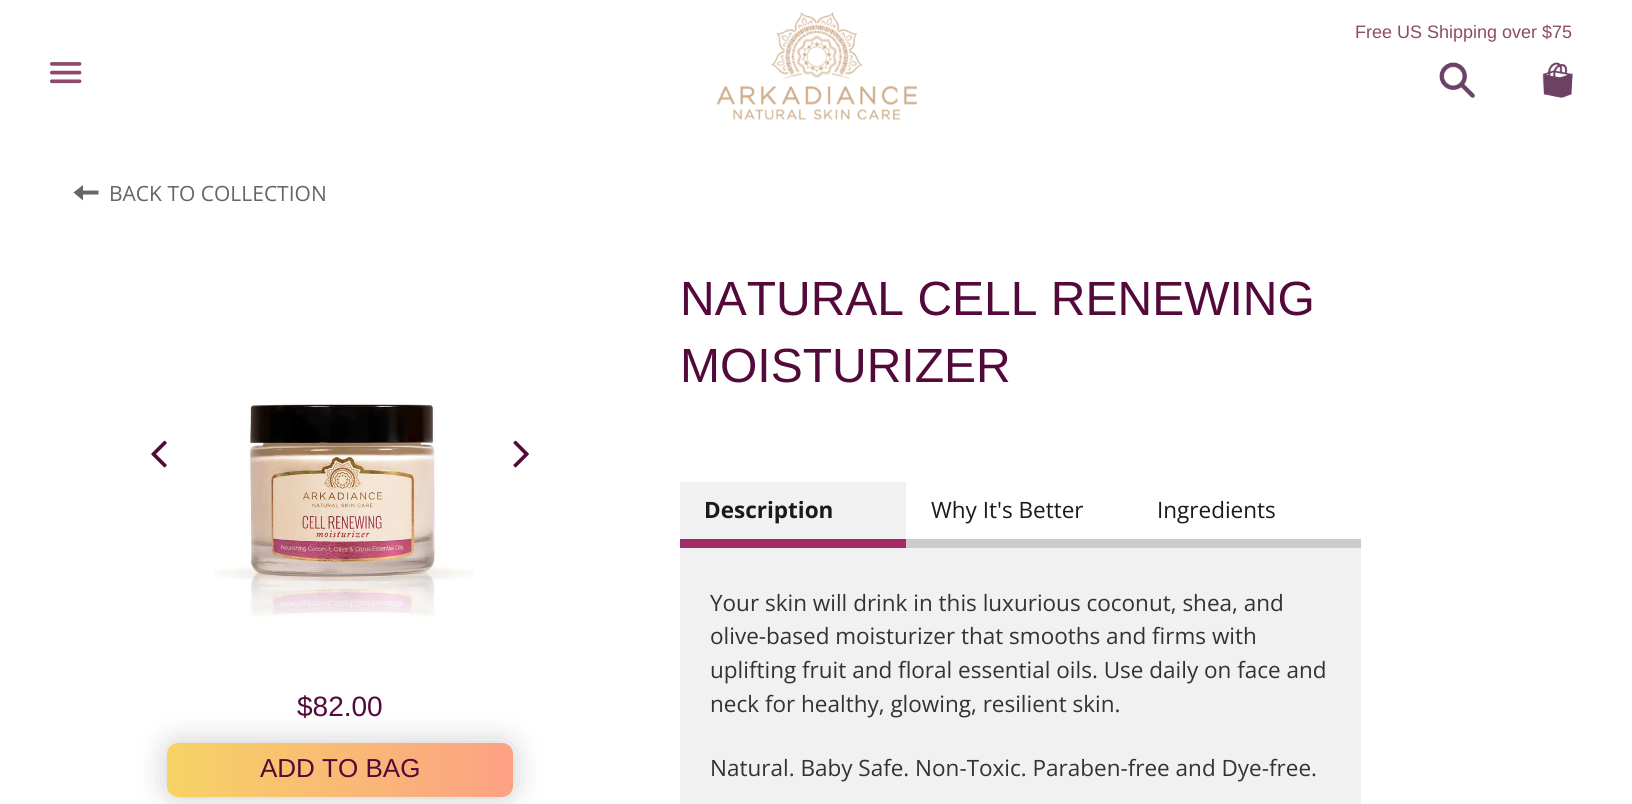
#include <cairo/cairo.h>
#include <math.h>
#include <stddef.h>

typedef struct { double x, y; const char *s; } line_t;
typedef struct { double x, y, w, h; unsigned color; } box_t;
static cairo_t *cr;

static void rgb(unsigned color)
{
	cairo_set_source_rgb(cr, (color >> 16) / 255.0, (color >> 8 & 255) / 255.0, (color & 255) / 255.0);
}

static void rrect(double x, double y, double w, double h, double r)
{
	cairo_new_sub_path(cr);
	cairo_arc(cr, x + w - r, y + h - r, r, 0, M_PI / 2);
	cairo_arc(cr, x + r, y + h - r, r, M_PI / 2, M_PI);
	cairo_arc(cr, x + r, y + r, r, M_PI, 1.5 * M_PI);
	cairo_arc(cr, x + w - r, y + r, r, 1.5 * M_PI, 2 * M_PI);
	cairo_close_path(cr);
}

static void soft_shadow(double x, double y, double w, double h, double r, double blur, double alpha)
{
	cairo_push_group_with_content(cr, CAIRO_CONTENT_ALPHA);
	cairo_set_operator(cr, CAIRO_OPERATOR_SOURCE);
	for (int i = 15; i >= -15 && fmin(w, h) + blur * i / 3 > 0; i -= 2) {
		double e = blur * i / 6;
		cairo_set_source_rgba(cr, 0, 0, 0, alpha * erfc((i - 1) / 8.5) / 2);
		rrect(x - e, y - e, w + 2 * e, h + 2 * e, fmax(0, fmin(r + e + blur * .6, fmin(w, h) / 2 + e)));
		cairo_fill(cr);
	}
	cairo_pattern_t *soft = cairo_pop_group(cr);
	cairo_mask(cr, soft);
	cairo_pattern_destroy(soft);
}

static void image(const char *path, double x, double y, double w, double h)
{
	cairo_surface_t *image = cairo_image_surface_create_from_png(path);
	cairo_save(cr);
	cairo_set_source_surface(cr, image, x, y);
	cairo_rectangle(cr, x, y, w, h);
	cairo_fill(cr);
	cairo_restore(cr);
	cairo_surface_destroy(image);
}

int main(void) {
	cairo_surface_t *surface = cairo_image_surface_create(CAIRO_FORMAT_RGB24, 1632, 804);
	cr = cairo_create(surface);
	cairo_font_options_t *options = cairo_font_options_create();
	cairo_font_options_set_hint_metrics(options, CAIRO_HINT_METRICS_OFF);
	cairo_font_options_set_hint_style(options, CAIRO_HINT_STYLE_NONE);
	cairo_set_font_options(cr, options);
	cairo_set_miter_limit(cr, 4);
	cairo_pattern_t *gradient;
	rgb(0xffffff);
	cairo_paint(cr);
	image("img/1.png", 716, 12, 202, 108);
	image("img/2.png", 50, 62, 32, 22);
	image("img/3.png", 1439, 62, 36, 36);
	image("img/4.png", 1542, 62, 31, 36);
	rgb(0x666666);
	cairo_new_path(cr);
	cairo_move_to(cr, 83, 190.5);
	cairo_line_to(cr, 83, 185);
	cairo_line_to(cr, 73.5, 192.5);
	cairo_line_to(cr, 83, 200.5);
	cairo_line_to(cr, 83, 194.5);
	cairo_line_to(cr, 98.5, 194.5);
	cairo_line_to(cr, 98.5, 190.5);
	cairo_close_path(cr);
	cairo_fill(cr);
	image("img/5.png", 151, 440, 16, 28);
	image("img/6.png", 214, 403, 260, 214);
	image("img/7.png", 513, 440, 16, 28);
	rgb(0xcccccc);
	soft_shadow(167, 743, 346, 54, 11, 15, 1);
	gradient = cairo_pattern_create_linear(167, 770, 860, 770);
	cairo_pattern_add_color_stop_rgba(gradient, 0, 0.965, 0.827, 0.396, 1);
	cairo_pattern_add_color_stop_rgba(gradient, 0.51, 0.992, 0.627, 0.522, 1);
	cairo_pattern_add_color_stop_rgba(gradient, 1, 0.965, 0.827, 0.396, 1);
	cairo_set_source(cr, gradient);
	cairo_pattern_destroy(gradient);
	rrect(167, 743, 346, 54, 11);
	cairo_fill(cr);
	{
		static const box_t items[] = {
			{680, 482, 226, 57, 0xf1f1f1},
			{680, 539, 226, 9, 0xa52b67},
			{906, 539, 455, 9, 0xcccccc},
			{680, 548, 681, 256, 0xf1f1f1},
		};
		for (size_t i = 0; i < sizeof items / sizeof *items; i++) {
			rgb(items[i].color);
			cairo_rectangle(cr, items[i].x, items[i].y, items[i].w, items[i].h);
			cairo_fill(cr);
		}
	}
	cairo_select_font_face(cr, "Liberation Sans", CAIRO_FONT_SLANT_NORMAL, CAIRO_FONT_WEIGHT_NORMAL);
	cairo_set_font_size(cr, 18);
	rgb(0x8d4a6b);
	cairo_move_to(cr, 1355, 38);
	cairo_show_text(cr, "Free US Shipping over $75");
	cairo_select_font_face(cr, "Open Sans", CAIRO_FONT_SLANT_NORMAL, CAIRO_FONT_WEIGHT_NORMAL);
	cairo_set_font_size(cr, 21);
	rgb(0x666666);
	cairo_move_to(cr, 109, 201);
	cairo_show_text(cr, "BACK TO COLLECTION");
	cairo_select_font_face(cr, "Liberation Sans", CAIRO_FONT_SLANT_NORMAL, CAIRO_FONT_WEIGHT_NORMAL);
	cairo_set_font_size(cr, 28);
	rgb(0x54093b);
	cairo_move_to(cr, 297, 716);
	cairo_show_text(cr, "$82.00");
	cairo_set_font_size(cr, 26);
	cairo_move_to(cr, 260, 777);
	cairo_show_text(cr, "ADD TO BAG");
	cairo_set_font_size(cr, 48);
	cairo_move_to(cr, 680, 315);
	cairo_show_text(cr, "NATURAL CELL RENEWING");
	cairo_move_to(cr, 680, 382);
	cairo_show_text(cr, "MOISTURIZER");
	cairo_select_font_face(cr, "Open Sans", CAIRO_FONT_SLANT_NORMAL, CAIRO_FONT_WEIGHT_BOLD);
	cairo_set_font_size(cr, 22.5);
	rgb(0x1a1a1a);
	cairo_move_to(cr, 704, 518);
	cairo_show_text(cr, "Description");
	cairo_select_font_face(cr, "Open Sans", CAIRO_FONT_SLANT_NORMAL, CAIRO_FONT_WEIGHT_NORMAL);
	cairo_move_to(cr, 931, 518);
	cairo_show_text(cr, "Why It's Better");
	cairo_move_to(cr, 1157, 518);
	cairo_show_text(cr, "Ingredients");
	rgb(0x333333);
	{
		static const line_t items[] = {
			{710, 611, "Your skin will drink in this luxurious coconut, shea, and"},
			{710, 644, "olive-based moisturizer that smooths and firms with"},
			{710, 678, "uplifting fruit and floral essential oils. Use daily on face and"},
			{710, 712, "neck for healthy, glowing, resilient skin."},
			{710, 776, "Natural. Baby Safe. Non-Toxic. Paraben-free and Dye-free."},
		};
		for (size_t i = 0; i < sizeof items / sizeof *items; i++) {
			cairo_move_to(cr, items[i].x, items[i].y);
			cairo_show_text(cr, items[i].s);
		}
	}
	cairo_surface_write_to_png(surface, "page.png");
	cairo_font_options_destroy(options);
	cairo_destroy(cr);
	cairo_surface_destroy(surface);
	return 0;
}
